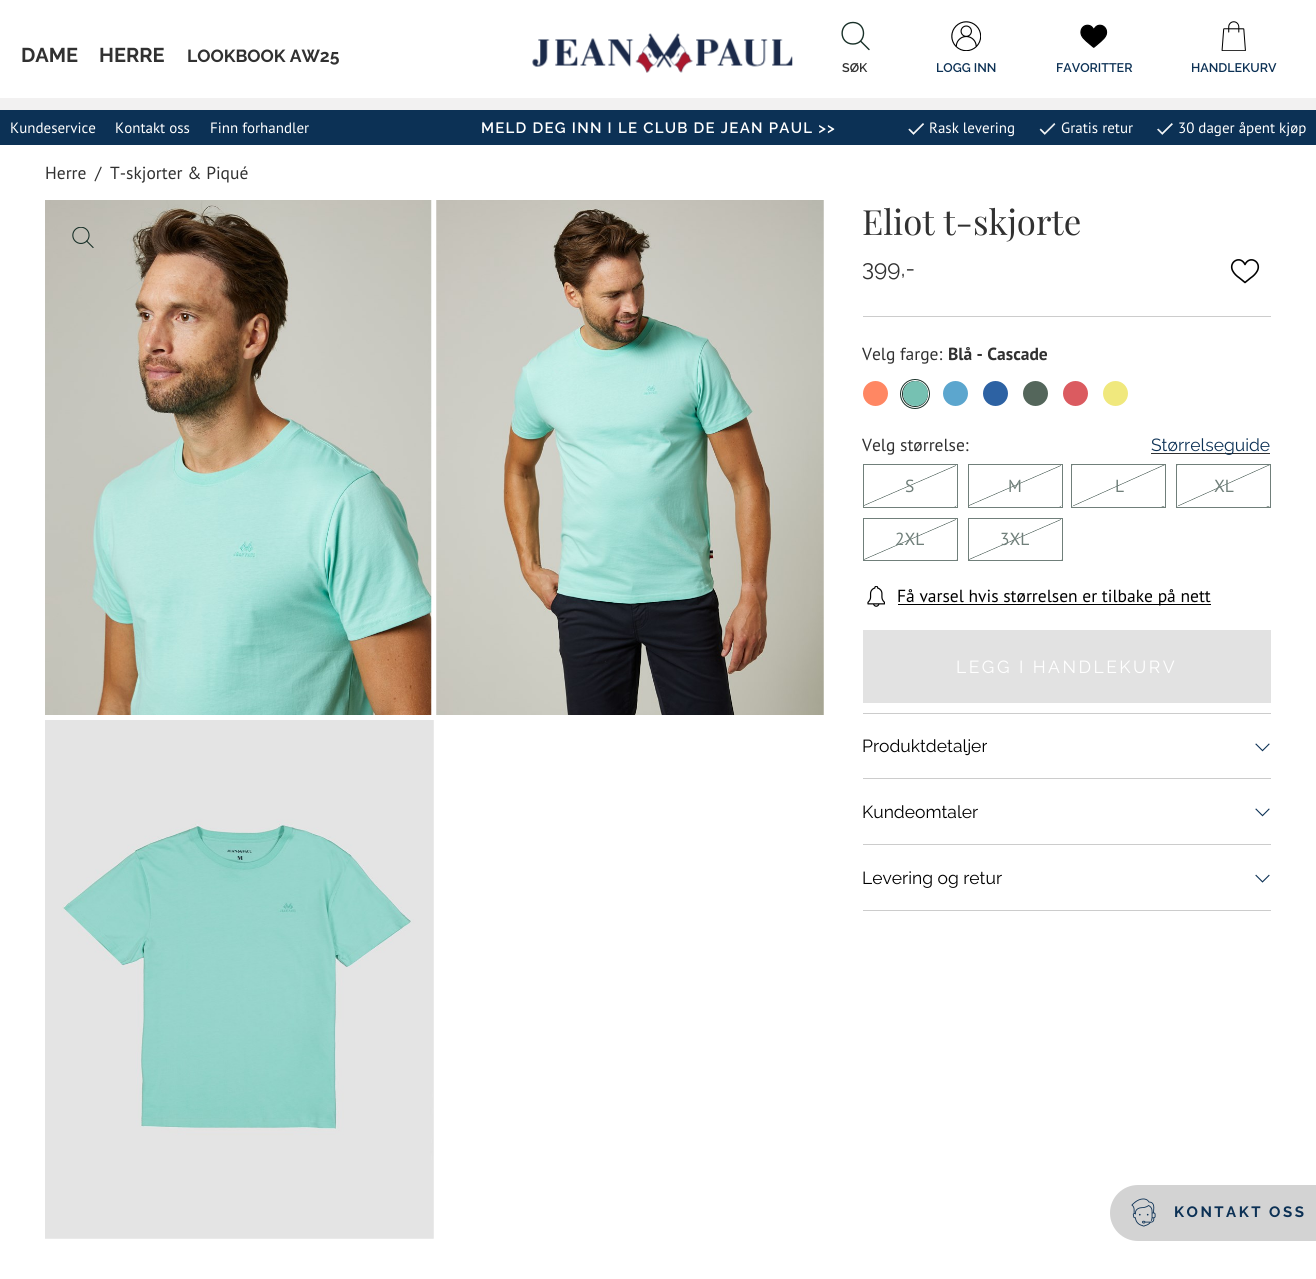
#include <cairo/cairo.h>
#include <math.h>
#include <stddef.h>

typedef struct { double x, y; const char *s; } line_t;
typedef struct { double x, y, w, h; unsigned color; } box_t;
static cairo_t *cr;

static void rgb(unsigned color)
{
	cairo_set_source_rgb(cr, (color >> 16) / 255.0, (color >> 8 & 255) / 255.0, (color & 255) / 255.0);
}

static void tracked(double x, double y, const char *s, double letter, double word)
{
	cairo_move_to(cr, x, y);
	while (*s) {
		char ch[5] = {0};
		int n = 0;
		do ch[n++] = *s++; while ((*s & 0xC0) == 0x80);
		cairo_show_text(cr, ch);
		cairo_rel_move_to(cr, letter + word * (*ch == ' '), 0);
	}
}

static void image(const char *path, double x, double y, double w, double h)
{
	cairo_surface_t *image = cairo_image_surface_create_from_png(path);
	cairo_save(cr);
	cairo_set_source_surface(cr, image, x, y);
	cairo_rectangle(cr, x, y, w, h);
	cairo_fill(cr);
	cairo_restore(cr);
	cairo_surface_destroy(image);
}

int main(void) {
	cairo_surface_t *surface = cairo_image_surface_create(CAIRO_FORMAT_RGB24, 1316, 1279);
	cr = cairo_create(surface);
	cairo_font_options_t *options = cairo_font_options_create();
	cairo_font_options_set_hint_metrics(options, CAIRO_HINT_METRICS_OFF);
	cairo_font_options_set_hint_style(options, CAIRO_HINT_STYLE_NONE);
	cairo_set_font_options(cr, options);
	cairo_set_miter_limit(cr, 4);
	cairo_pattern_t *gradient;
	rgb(0xffffff);
	cairo_paint(cr);
	rgb(0xf2f1f1);
	cairo_rectangle(cr, 0, 98, 1316, 12);
	cairo_fill(cr);
	image("img/1.png", 532, 33, 261, 40);
	cairo_new_path(cr);
	cairo_move_to(cr, 853, 44);
	cairo_curve_to(cr, 867, 44, 867, 22.5, 853, 22.5);
	cairo_curve_to(cr, 838.5, 22.5, 838.5, 44, 853, 44);
	cairo_close_path(cr);
	cairo_move_to(cr, 860.5, 41);
	cairo_line_to(cr, 869, 49.5);
	rgb(0x183028);
	cairo_set_line_width(cr, 1.4);
	cairo_set_line_cap(cr, CAIRO_LINE_CAP_ROUND);
	cairo_stroke(cr);
	image("img/2.png", 951, 21, 30, 30);
	image("img/3.png", 1080, 24, 28, 24);
	image("img/4.png", 1221, 21, 25, 30);
	rgb(0x0c3155);
	cairo_rectangle(cr, 0, 110, 1316, 35);
	cairo_fill(cr);
	image("img/5.png", 908, 123, 16, 12);
	image("img/6.png", 1039, 123, 17, 12);
	image("img/7.png", 1157, 123, 16, 12);
	image("img/8.png", 45, 200, 387, 515);
	image("img/9.png", 436, 200, 388, 515);
	image("img/10.png", 45, 720, 389, 519);
	image("img/11.png", 72, 227, 22, 21);
	cairo_new_path(cr);
	cairo_move_to(cr, 1245, 282.5);
	cairo_line_to(cr, 1239.5, 278);
	cairo_curve_to(cr, 1236.5, 276, 1234, 273.5, 1232.5, 270.5);
	cairo_curve_to(cr, 1228.5, 261.5, 1240.5, 255, 1245, 264.5);
	cairo_curve_to(cr, 1249.5, 255, 1261.5, 261.5, 1257.5, 270.5);
	cairo_curve_to(cr, 1256, 273.5, 1253.5, 276, 1250.5, 278);
	cairo_line_to(cr, 1245, 282.5);
	rgb(0x000000);
	cairo_set_line_width(cr, 1.6);
	cairo_set_line_join(cr, CAIRO_LINE_JOIN_ROUND);
	cairo_stroke(cr);
	rgb(0xcccccc);
	cairo_rectangle(cr, 863, 316, 408, 1);
	cairo_fill(cr);
	rgb(0xff8763);
	cairo_arc(cr, 875.5, 393.5, 12.5, 0, 2 * M_PI);
	cairo_fill(cr);
	cairo_arc(cr, 915, 394, 13.5, 0, 2 * M_PI);
	rgb(0x183028);
	cairo_set_line_width(cr, 3);
	cairo_set_line_cap(cr, CAIRO_LINE_CAP_BUTT);
	cairo_set_line_join(cr, CAIRO_LINE_JOIN_MITER);
	cairo_stroke(cr);
	cairo_arc(cr, 915, 394, 13.5, 0, 2 * M_PI);
	rgb(0xffffff);
	cairo_set_line_width(cr, 1);
	cairo_stroke(cr);
	rgb(0x76c1b2);
	cairo_arc(cr, 915.5, 393.5, 12.5, 0, 2 * M_PI);
	cairo_fill(cr);
	rgb(0x5ca6ce);
	cairo_arc(cr, 955.5, 393.5, 12.5, 0, 2 * M_PI);
	cairo_fill(cr);
	rgb(0x2d62a3);
	cairo_arc(cr, 995.5, 393.5, 12.5, 0, 2 * M_PI);
	cairo_fill(cr);
	rgb(0x54665b);
	cairo_arc(cr, 1035.5, 393.5, 12.5, 0, 2 * M_PI);
	cairo_fill(cr);
	rgb(0xdb5b60);
	cairo_arc(cr, 1075.5, 393.5, 12.5, 0, 2 * M_PI);
	cairo_fill(cr);
	rgb(0xf0e87d);
	cairo_arc(cr, 1115.5, 393.5, 12.5, 0, 2 * M_PI);
	cairo_fill(cr);
	rgb(0x313131);
	cairo_rectangle(cr, 1151, 453, 119, 1);
	cairo_fill(cr);
	gradient = cairo_pattern_create_linear(925, 520, 895, 451);
	cairo_pattern_add_color_stop_rgba(gradient, 0.49, 1, 1, 1, 1);
	cairo_pattern_add_color_stop_rgba(gradient, 0.5, 0.439, 0.498, 0.478, 1);
	cairo_pattern_add_color_stop_rgba(gradient, 0.51, 1, 1, 1, 1);
	cairo_set_source(cr, gradient);
	cairo_pattern_destroy(gradient);
	cairo_rectangle(cr, 864, 465, 92, 41);
	cairo_fill(cr);
	gradient = cairo_pattern_create_linear(1018, 520, 987, 451);
	cairo_pattern_add_color_stop_rgba(gradient, 0.49, 1, 1, 1, 1);
	cairo_pattern_add_color_stop_rgba(gradient, 0.5, 0.439, 0.498, 0.478, 1);
	cairo_pattern_add_color_stop_rgba(gradient, 0.51, 1, 1, 1, 1);
	cairo_set_source(cr, gradient);
	cairo_pattern_destroy(gradient);
	cairo_rectangle(cr, 956, 505, 1, 1);
	cairo_fill(cr);
	gradient = cairo_pattern_create_linear(925, 561, 895, 492);
	cairo_pattern_add_color_stop_rgba(gradient, 0.49, 1, 1, 1, 1);
	cairo_pattern_add_color_stop_rgba(gradient, 0.5, 0.439, 0.498, 0.478, 1);
	cairo_pattern_add_color_stop_rgba(gradient, 0.51, 1, 1, 1, 1);
	cairo_set_source(cr, gradient);
	cairo_pattern_destroy(gradient);
	cairo_rectangle(cr, 954, 506, 2, 1);
	cairo_fill(cr);
	cairo_rectangle(cr, 863.5, 464.5, 94, 43);
	rgb(0x707f7a);
	cairo_stroke(cr);
	gradient = cairo_pattern_create_linear(1030, 520, 1000, 451);
	cairo_pattern_add_color_stop_rgba(gradient, 0.49, 1, 1, 1, 1);
	cairo_pattern_add_color_stop_rgba(gradient, 0.5, 0.439, 0.498, 0.478, 1);
	cairo_pattern_add_color_stop_rgba(gradient, 0.51, 1, 1, 1, 1);
	cairo_set_source(cr, gradient);
	cairo_pattern_destroy(gradient);
	cairo_rectangle(cr, 969, 465, 92, 41);
	cairo_fill(cr);
	gradient = cairo_pattern_create_linear(1123, 520, 1092, 451);
	cairo_pattern_add_color_stop_rgba(gradient, 0.49, 1, 1, 1, 1);
	cairo_pattern_add_color_stop_rgba(gradient, 0.5, 0.439, 0.498, 0.478, 1);
	cairo_pattern_add_color_stop_rgba(gradient, 0.51, 1, 1, 1, 1);
	cairo_set_source(cr, gradient);
	cairo_pattern_destroy(gradient);
	cairo_rectangle(cr, 1061, 505, 1, 1);
	cairo_fill(cr);
	gradient = cairo_pattern_create_linear(1030, 561, 1000, 492);
	cairo_pattern_add_color_stop_rgba(gradient, 0.49, 1, 1, 1, 1);
	cairo_pattern_add_color_stop_rgba(gradient, 0.5, 0.439, 0.498, 0.478, 1);
	cairo_pattern_add_color_stop_rgba(gradient, 0.51, 1, 1, 1, 1);
	cairo_set_source(cr, gradient);
	cairo_pattern_destroy(gradient);
	cairo_rectangle(cr, 1059, 506, 2, 1);
	cairo_fill(cr);
	cairo_rectangle(cr, 968.5, 464.5, 94, 43);
	rgb(0x707f7a);
	cairo_stroke(cr);
	gradient = cairo_pattern_create_linear(1042, 520, 1011, 451);
	cairo_pattern_add_color_stop_rgba(gradient, 0.49, 1, 1, 1, 1);
	cairo_pattern_add_color_stop_rgba(gradient, 0.5, 0.439, 0.498, 0.478, 1);
	cairo_pattern_add_color_stop_rgba(gradient, 0.51, 1, 1, 1, 1);
	cairo_set_source(cr, gradient);
	cairo_pattern_destroy(gradient);
	cairo_rectangle(cr, 1072, 465, 1, 1);
	cairo_fill(cr);
	gradient = cairo_pattern_create_linear(1134, 520, 1103, 451);
	cairo_pattern_add_color_stop_rgba(gradient, 0.49, 1, 1, 1, 1);
	cairo_pattern_add_color_stop_rgba(gradient, 0.5, 0.439, 0.498, 0.478, 1);
	cairo_pattern_add_color_stop_rgba(gradient, 0.51, 1, 1, 1, 1);
	cairo_set_source(cr, gradient);
	cairo_pattern_destroy(gradient);
	cairo_rectangle(cr, 1073, 465, 92, 41);
	cairo_fill(cr);
	gradient = cairo_pattern_create_linear(1042, 561, 1011, 492);
	cairo_pattern_add_color_stop_rgba(gradient, 0.49, 1, 1, 1, 1);
	cairo_pattern_add_color_stop_rgba(gradient, 0.5, 0.439, 0.498, 0.478, 1);
	cairo_pattern_add_color_stop_rgba(gradient, 0.51, 1, 1, 1, 1);
	cairo_set_source(cr, gradient);
	cairo_pattern_destroy(gradient);
	cairo_rectangle(cr, 1071, 506, 2, 1);
	cairo_fill(cr);
	gradient = cairo_pattern_create_linear(1134, 561, 1103, 492);
	cairo_pattern_add_color_stop_rgba(gradient, 0.49, 1, 1, 1, 1);
	cairo_pattern_add_color_stop_rgba(gradient, 0.5, 0.439, 0.498, 0.478, 1);
	cairo_pattern_add_color_stop_rgba(gradient, 0.51, 1, 1, 1, 1);
	cairo_set_source(cr, gradient);
	cairo_pattern_destroy(gradient);
	cairo_rectangle(cr, 1161, 506, 4, 1);
	cairo_fill(cr);
	cairo_rectangle(cr, 1071.5, 464.5, 94, 43);
	rgb(0x707f7a);
	cairo_stroke(cr);
	gradient = cairo_pattern_create_linear(1147, 520, 1116, 451);
	cairo_pattern_add_color_stop_rgba(gradient, 0.49, 1, 1, 1, 1);
	cairo_pattern_add_color_stop_rgba(gradient, 0.5, 0.439, 0.498, 0.478, 1);
	cairo_pattern_add_color_stop_rgba(gradient, 0.51, 1, 1, 1, 1);
	cairo_set_source(cr, gradient);
	cairo_pattern_destroy(gradient);
	cairo_rectangle(cr, 1177, 465, 1, 1);
	cairo_fill(cr);
	gradient = cairo_pattern_create_linear(1239, 520, 1208, 451);
	cairo_pattern_add_color_stop_rgba(gradient, 0.49, 1, 1, 1, 1);
	cairo_pattern_add_color_stop_rgba(gradient, 0.5, 0.439, 0.498, 0.478, 1);
	cairo_pattern_add_color_stop_rgba(gradient, 0.51, 1, 1, 1, 1);
	cairo_set_source(cr, gradient);
	cairo_pattern_destroy(gradient);
	cairo_rectangle(cr, 1178, 465, 92, 41);
	cairo_fill(cr);
	gradient = cairo_pattern_create_linear(1147, 561, 1116, 492);
	cairo_pattern_add_color_stop_rgba(gradient, 0.49, 1, 1, 1, 1);
	cairo_pattern_add_color_stop_rgba(gradient, 0.5, 0.439, 0.498, 0.478, 1);
	cairo_pattern_add_color_stop_rgba(gradient, 0.51, 1, 1, 1, 1);
	cairo_set_source(cr, gradient);
	cairo_pattern_destroy(gradient);
	cairo_rectangle(cr, 1176, 506, 2, 1);
	cairo_fill(cr);
	gradient = cairo_pattern_create_linear(1239, 561, 1208, 492);
	cairo_pattern_add_color_stop_rgba(gradient, 0.49, 1, 1, 1, 1);
	cairo_pattern_add_color_stop_rgba(gradient, 0.5, 0.439, 0.498, 0.478, 1);
	cairo_pattern_add_color_stop_rgba(gradient, 0.51, 1, 1, 1, 1);
	cairo_set_source(cr, gradient);
	cairo_pattern_destroy(gradient);
	cairo_rectangle(cr, 1266, 506, 4, 1);
	cairo_fill(cr);
	cairo_rectangle(cr, 1176.5, 464.5, 94, 43);
	rgb(0x707f7a);
	cairo_stroke(cr);
	gradient = cairo_pattern_create_linear(925, 574, 895, 505);
	cairo_pattern_add_color_stop_rgba(gradient, 0.49, 1, 1, 1, 1);
	cairo_pattern_add_color_stop_rgba(gradient, 0.5, 0.439, 0.498, 0.478, 1);
	cairo_pattern_add_color_stop_rgba(gradient, 0.51, 1, 1, 1, 1);
	cairo_set_source(cr, gradient);
	cairo_pattern_destroy(gradient);
	cairo_rectangle(cr, 864, 519, 92, 41);
	cairo_fill(cr);
	gradient = cairo_pattern_create_linear(1018, 574, 987, 505);
	cairo_pattern_add_color_stop_rgba(gradient, 0.49, 1, 1, 1, 1);
	cairo_pattern_add_color_stop_rgba(gradient, 0.5, 0.439, 0.498, 0.478, 1);
	cairo_pattern_add_color_stop_rgba(gradient, 0.51, 1, 1, 1, 1);
	cairo_set_source(cr, gradient);
	cairo_pattern_destroy(gradient);
	cairo_rectangle(cr, 956, 559, 1, 1);
	cairo_fill(cr);
	cairo_rectangle(cr, 863.5, 518.5, 94, 42);
	rgb(0x707f7a);
	cairo_stroke(cr);
	gradient = cairo_pattern_create_linear(1030, 574, 1000, 505);
	cairo_pattern_add_color_stop_rgba(gradient, 0.49, 1, 1, 1, 1);
	cairo_pattern_add_color_stop_rgba(gradient, 0.5, 0.439, 0.498, 0.478, 1);
	cairo_pattern_add_color_stop_rgba(gradient, 0.51, 1, 1, 1, 1);
	cairo_set_source(cr, gradient);
	cairo_pattern_destroy(gradient);
	cairo_rectangle(cr, 969, 519, 92, 41);
	cairo_fill(cr);
	gradient = cairo_pattern_create_linear(1123, 574, 1092, 505);
	cairo_pattern_add_color_stop_rgba(gradient, 0.49, 1, 1, 1, 1);
	cairo_pattern_add_color_stop_rgba(gradient, 0.5, 0.439, 0.498, 0.478, 1);
	cairo_pattern_add_color_stop_rgba(gradient, 0.51, 1, 1, 1, 1);
	cairo_set_source(cr, gradient);
	cairo_pattern_destroy(gradient);
	cairo_rectangle(cr, 1061, 559, 1, 1);
	cairo_fill(cr);
	cairo_rectangle(cr, 968.5, 518.5, 94, 42);
	rgb(0x707f7a);
	cairo_stroke(cr);
	image("img/12.png", 867, 586, 18, 21);
	{
		static const box_t items[] = {
			{898, 604, 313, 1, 0x000000},
			{863, 630, 408, 73, 0xe2e2e2},
			{863, 713, 408, 1, 0xcccccc},
		};
		for (size_t i = 0; i < sizeof items / sizeof *items; i++) {
			rgb(items[i].color);
			cairo_rectangle(cr, items[i].x, items[i].y, items[i].w, items[i].h);
			cairo_fill(cr);
		}
	}
	image("img/13.png", 1255, 743, 15, 9);
	cairo_rectangle(cr, 863, 778, 408, 1);
	cairo_fill(cr);
	image("img/13.png", 1255, 808, 15, 9);
	cairo_rectangle(cr, 863, 844, 408, 1);
	cairo_fill(cr);
	cairo_rectangle(cr, 863, 910, 408, 1);
	cairo_fill(cr);
	image("img/14.png", 1255, 874, 15, 9);
	rgb(0xd3d3d3);
	cairo_new_path(cr);
	cairo_move_to(cr, 1138, 1185);
	cairo_line_to(cr, 1316, 1185);
	cairo_line_to(cr, 1316, 1241);
	cairo_line_to(cr, 1138, 1241);
	cairo_curve_to(cr, 1122.5, 1241, 1110, 1228.5, 1110, 1213);
	cairo_curve_to(cr, 1110, 1197.5, 1122.5, 1185, 1138, 1185);
	cairo_close_path(cr);
	cairo_fill(cr);
	image("img/15.png", 1131, 1198, 25, 29);
	cairo_select_font_face(cr, "Raleway", CAIRO_FONT_SLANT_NORMAL, CAIRO_FONT_WEIGHT_BOLD);
	cairo_set_font_size(cr, 20);
	rgb(0x313131);
	cairo_move_to(cr, 21, 62);
	cairo_show_text(cr, "DAME");
	cairo_move_to(cr, 99, 62);
	cairo_show_text(cr, "HERRE");
	cairo_set_font_size(cr, 17.5);
	cairo_move_to(cr, 187, 62);
	cairo_show_text(cr, "LOOKBOOK AW25");
	cairo_select_font_face(cr, "Raleway SemiBold", CAIRO_FONT_SLANT_NORMAL, CAIRO_FONT_WEIGHT_NORMAL);
	cairo_set_font_size(cr, 12.5);
	cairo_move_to(cr, 842, 72);
	cairo_show_text(cr, "SØK");
	rgb(0x0c3155);
	{
		static const line_t items[] = {
			{936, 72, "LOGG INN"},
			{1056, 72, "FAVORITTER"},
			{1191, 72, "HANDLEKURV"},
		};
		for (size_t i = 0; i < sizeof items / sizeof *items; i++) {
			cairo_move_to(cr, items[i].x, items[i].y);
			cairo_show_text(cr, items[i].s);
		}
	}
	cairo_select_font_face(cr, "PT Sans", CAIRO_FONT_SLANT_NORMAL, CAIRO_FONT_WEIGHT_NORMAL);
	cairo_set_font_size(cr, 15);
	rgb(0xffffff);
	{
		static const line_t items[] = {
			{10, 133, "Kundeservice"},
			{115, 133, "Kontakt oss"},
			{210, 133, "Finn forhandler"},
		};
		for (size_t i = 0; i < sizeof items / sizeof *items; i++) {
			cairo_move_to(cr, items[i].x, items[i].y);
			cairo_show_text(cr, items[i].s);
		}
	}
	cairo_select_font_face(cr, "Raleway SemiBold", CAIRO_FONT_SLANT_NORMAL, CAIRO_FONT_WEIGHT_NORMAL);
	tracked(481, 133, "MELD DEG INN I LE CLUB DE JEAN PAUL >>", 1.25, 0);
	cairo_select_font_face(cr, "PT Sans", CAIRO_FONT_SLANT_NORMAL, CAIRO_FONT_WEIGHT_NORMAL);
	{
		static const line_t items[] = {
			{929, 133, "Rask levering"},
			{1061, 133, "Gratis retur"},
			{1178, 133, "30 dager åpent kjøp"},
		};
		for (size_t i = 0; i < sizeof items / sizeof *items; i++) {
			cairo_move_to(cr, items[i].x, items[i].y);
			cairo_show_text(cr, items[i].s);
		}
	}
	cairo_set_font_size(cr, 17.5);
	rgb(0x313131);
	{
		static const line_t items[] = {
			{45, 179, "Herre"},
			{95, 179, "/"},
			{110, 179, "T-skjorter & Piqué"},
		};
		for (size_t i = 0; i < sizeof items / sizeof *items; i++) {
			cairo_move_to(cr, items[i].x, items[i].y);
			cairo_show_text(cr, items[i].s);
		}
	}
	cairo_select_font_face(cr, "Playfair Display", CAIRO_FONT_SLANT_NORMAL, CAIRO_FONT_WEIGHT_NORMAL);
	cairo_set_font_size(cr, 34.75);
	cairo_move_to(cr, 862, 235);
	cairo_show_text(cr, "Eliot t-skjorte");
	cairo_select_font_face(cr, "Raleway", CAIRO_FONT_SLANT_NORMAL, CAIRO_FONT_WEIGHT_NORMAL);
	cairo_set_font_size(cr, 22.5);
	cairo_move_to(cr, 862, 276);
	cairo_show_text(cr, "399,-");
	cairo_select_font_face(cr, "PT Sans", CAIRO_FONT_SLANT_NORMAL, CAIRO_FONT_WEIGHT_NORMAL);
	cairo_set_font_size(cr, 17.5);
	cairo_move_to(cr, 862, 360);
	cairo_show_text(cr, "Velg farge:");
	cairo_select_font_face(cr, "PT Sans", CAIRO_FONT_SLANT_NORMAL, CAIRO_FONT_WEIGHT_BOLD);
	cairo_move_to(cr, 948, 360);
	cairo_show_text(cr, "Blå - Cascade");
	cairo_select_font_face(cr, "PT Sans", CAIRO_FONT_SLANT_NORMAL, CAIRO_FONT_WEIGHT_NORMAL);
	cairo_move_to(cr, 862, 451);
	cairo_show_text(cr, "Velg størrelse:");
	cairo_select_font_face(cr, "Raleway", CAIRO_FONT_SLANT_NORMAL, CAIRO_FONT_WEIGHT_NORMAL);
	rgb(0x0c3155);
	cairo_move_to(cr, 1151, 451);
	cairo_show_text(cr, "Størrelseguide");
	cairo_select_font_face(cr, "PT Sans", CAIRO_FONT_SLANT_NORMAL, CAIRO_FONT_WEIGHT_NORMAL);
	rgb(0x707f7a);
	{
		static const line_t items[] = {
			{905, 492, "S"},
			{1008, 492, "M"},
			{1115, 492, "L"},
			{1214, 492, "XL"},
			{895, 545, "2XL"},
			{1000, 545, "3XL"},
		};
		for (size_t i = 0; i < sizeof items / sizeof *items; i++) {
			cairo_move_to(cr, items[i].x, items[i].y);
			cairo_show_text(cr, items[i].s);
		}
	}
	rgb(0x000000);
	cairo_move_to(cr, 897, 602);
	cairo_show_text(cr, "Få varsel hvis størrelsen er tilbake på nett");
	cairo_select_font_face(cr, "Raleway", CAIRO_FONT_SLANT_NORMAL, CAIRO_FONT_WEIGHT_NORMAL);
	rgb(0xffffff);
	tracked(956, 673, "LEGG I HANDLEKURV", 2.5, 0);
	rgb(0x000000);
	{
		static const line_t items[] = {
			{862, 752, "Produktdetaljer"},
			{862, 818, "Kundeomtaler"},
			{862, 884, "Levering og retur"},
		};
		for (size_t i = 0; i < sizeof items / sizeof *items; i++) {
			cairo_move_to(cr, items[i].x, items[i].y);
			cairo_show_text(cr, items[i].s);
		}
	}
	cairo_select_font_face(cr, "Raleway", CAIRO_FONT_SLANT_NORMAL, CAIRO_FONT_WEIGHT_BOLD);
	cairo_set_font_size(cr, 15);
	rgb(0x0c3155);
	tracked(1174, 1217, "KONTAKT OSS", 2.5, 0);
	cairo_surface_write_to_png(surface, "page.png");
	cairo_font_options_destroy(options);
	cairo_destroy(cr);
	cairo_surface_destroy(surface);
	return 0;
}
